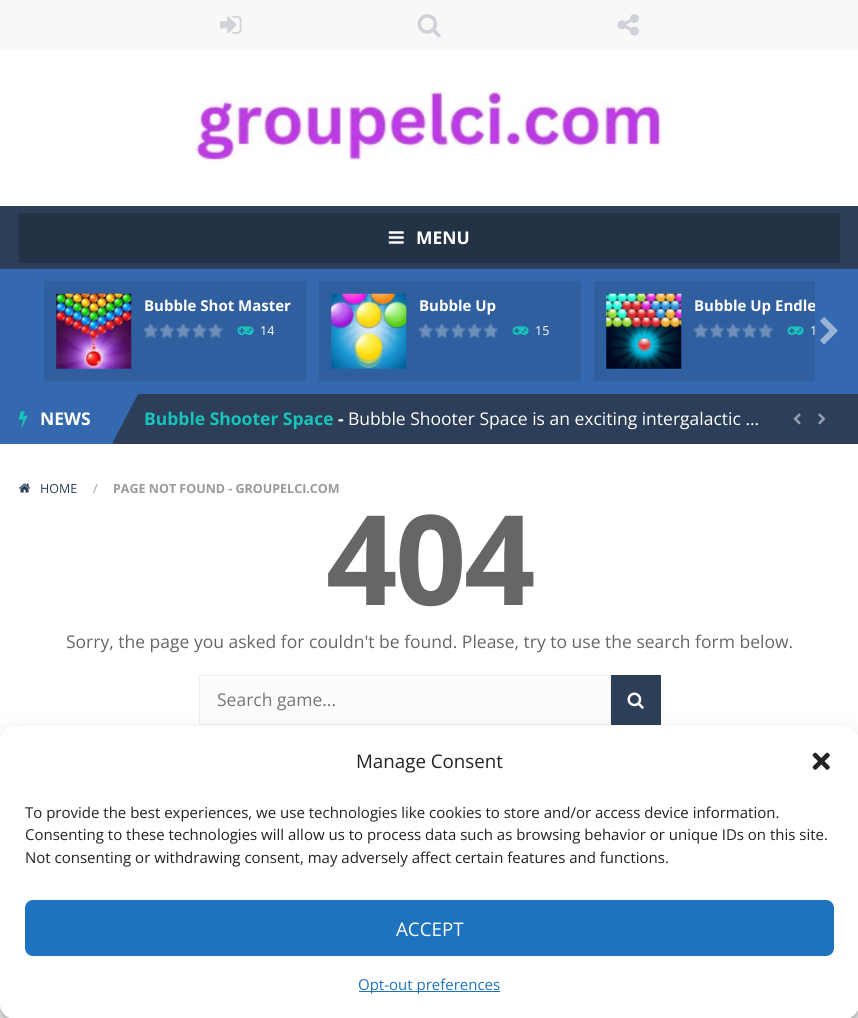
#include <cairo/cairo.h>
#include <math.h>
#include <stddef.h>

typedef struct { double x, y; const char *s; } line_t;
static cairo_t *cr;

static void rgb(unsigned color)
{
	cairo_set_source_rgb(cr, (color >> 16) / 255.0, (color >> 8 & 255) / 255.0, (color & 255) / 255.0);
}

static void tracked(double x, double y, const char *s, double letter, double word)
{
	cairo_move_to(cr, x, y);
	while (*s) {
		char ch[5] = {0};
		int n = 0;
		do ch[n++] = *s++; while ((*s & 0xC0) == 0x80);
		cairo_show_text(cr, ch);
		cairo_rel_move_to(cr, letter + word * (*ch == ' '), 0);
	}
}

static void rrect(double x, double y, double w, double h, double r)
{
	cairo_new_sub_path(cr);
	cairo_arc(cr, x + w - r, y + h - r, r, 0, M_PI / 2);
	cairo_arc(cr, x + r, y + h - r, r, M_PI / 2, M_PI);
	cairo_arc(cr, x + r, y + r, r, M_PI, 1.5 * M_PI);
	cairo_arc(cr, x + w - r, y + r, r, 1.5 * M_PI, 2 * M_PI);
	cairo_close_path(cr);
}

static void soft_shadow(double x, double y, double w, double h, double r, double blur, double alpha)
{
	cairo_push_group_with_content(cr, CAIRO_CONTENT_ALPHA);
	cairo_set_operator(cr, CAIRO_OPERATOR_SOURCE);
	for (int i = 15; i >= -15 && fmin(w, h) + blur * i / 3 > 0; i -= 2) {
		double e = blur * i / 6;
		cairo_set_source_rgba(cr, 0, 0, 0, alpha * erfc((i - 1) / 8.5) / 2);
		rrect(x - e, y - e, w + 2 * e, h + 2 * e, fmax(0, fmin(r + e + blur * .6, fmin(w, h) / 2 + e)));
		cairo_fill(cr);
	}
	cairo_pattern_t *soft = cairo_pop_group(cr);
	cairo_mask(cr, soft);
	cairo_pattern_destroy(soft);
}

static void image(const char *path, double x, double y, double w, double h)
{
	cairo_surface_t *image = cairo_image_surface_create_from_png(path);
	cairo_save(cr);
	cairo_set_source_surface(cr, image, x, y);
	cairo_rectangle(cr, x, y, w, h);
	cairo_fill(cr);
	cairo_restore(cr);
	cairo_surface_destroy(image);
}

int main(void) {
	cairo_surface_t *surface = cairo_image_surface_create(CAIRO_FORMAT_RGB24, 858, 1018);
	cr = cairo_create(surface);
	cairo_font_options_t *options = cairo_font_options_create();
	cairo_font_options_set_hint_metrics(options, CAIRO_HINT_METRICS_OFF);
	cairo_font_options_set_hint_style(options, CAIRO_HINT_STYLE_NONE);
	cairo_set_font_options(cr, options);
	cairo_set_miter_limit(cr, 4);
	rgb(0xf8f8f8);
	cairo_paint(cr);
	image("img/1.png", 220, 15, 22, 19);
	image("img/2.png", 417, 14, 24, 24);
	image("img/3.png", 617, 14, 22, 22);
	rgb(0xffffff);
	cairo_rectangle(cr, 0, 50, 858, 156);
	cairo_fill(cr);
	image("img/4.png", 190, 88, 471, 76);
	rgb(0x2d3e58);
	cairo_rectangle(cr, 0, 206, 858, 63);
	cairo_fill(cr);
	rgb(0x243246);
	cairo_rectangle(cr, 19, 213, 821, 50);
	cairo_fill(cr);
	image("img/5.png", 388, 231, 16, 13);
	rgb(0x3469af);
	cairo_rectangle(cr, 0, 269, 858, 125);
	cairo_fill(cr);
	rgb(0x2f5f9e);
	cairo_rectangle(cr, 44, 281, 262, 100);
	cairo_fill(cr);
	image("img/6.png", 56, 293, 76, 76);
	image("img/7.png", 144, 324, 14, 14);
	image("img/8.png", 160, 324, 14, 14);
	image("img/9.png", 176, 324, 15, 14);
	image("img/10.png", 192, 324, 15, 14);
	image("img/11.png", 208, 324, 15, 14);
	image("img/12.png", 237, 326, 17, 9);
	cairo_rectangle(cr, 319, 281, 262, 100);
	cairo_fill(cr);
	image("img/13.png", 331, 293, 76, 76);
	image("img/11.png", 418, 324, 15, 14);
	image("img/8.png", 435, 324, 14, 14);
	image("img/9.png", 451, 324, 15, 14);
	image("img/10.png", 467, 324, 15, 14);
	image("img/14.png", 483, 324, 15, 14);
	image("img/12.png", 512, 326, 17, 9);
	cairo_rectangle(cr, 594, 281, 221, 100);
	cairo_fill(cr);
	image("img/15.png", 606, 293, 76, 76);
	image("img/11.png", 693, 324, 15, 14);
	image("img/16.png", 710, 323, 14, 15);
	image("img/17.png", 726, 324, 15, 14);
	image("img/18.png", 742, 324, 15, 14);
	image("img/19.png", 759, 324, 14, 14);
	image("img/12.png", 787, 326, 17, 9);
	image("img/20.png", 820, 317, 18, 28);
	rgb(0x2d3e58);
	cairo_rectangle(cr, 113, 394, 745, 50);
	cairo_fill(cr);
	rgb(0x3469af);
	cairo_rectangle(cr, 0, 394, 113, 50);
	cairo_fill(cr);
	image("img/21.png", 18, 411, 10, 17);
	cairo_new_path(cr);
	cairo_move_to(cr, 112, 394);
	cairo_line_to(cr, 138, 394);
	cairo_line_to(cr, 112, 444);
	cairo_close_path(cr);
	cairo_fill(cr);
	image("img/22.png", 793, 413, 8, 12);
	image("img/23.png", 818, 413, 8, 12);
	rgb(0xffffff);
	cairo_rectangle(cr, 0, 444, 858, 574);
	cairo_fill(cr);
	image("img/24.png", 19, 483, 12, 10);
	rgb(0xfcfcfc);
	cairo_rectangle(cr, 199.5, 675.5, 411, 49);
	cairo_fill_preserve(cr);
	rgb(0xeeeeee);
	cairo_set_line_width(cr, 1);
	cairo_stroke(cr);
	rgb(0x2d3e58);
	cairo_rectangle(cr, 611, 675, 50, 50);
	cairo_fill(cr);
	image("img/25.png", 627, 692, 17, 17);
	rgb(0x000000);
	soft_shadow(0, 734, 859, 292, 15, 4, 0.23);
	soft_shadow(0, 739, 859, 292, 15, 12.5, 0.19);
	rgb(0xffffff);
	rrect(0, 726, 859, 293, 15);
	cairo_fill(cr);
	image("img/26.png", 812, 752, 18, 18);
	rgb(0x1e73be);
	rrect(25.5, 900.5, 808, 55, 7.5);
	cairo_fill_preserve(cr);
	cairo_stroke(cr);
	cairo_rectangle(cr, 359, 991, 141, 1);
	cairo_fill(cr);
	cairo_select_font_face(cr, "Open Sans", CAIRO_FONT_SLANT_NORMAL, CAIRO_FONT_WEIGHT_BOLD);
	cairo_set_font_size(cr, 17.5);
	rgb(0xffffff);
	cairo_move_to(cr, 416, 244);
	cairo_show_text(cr, "MENU");
	cairo_set_font_size(cr, 15);
	cairo_move_to(cr, 144, 311);
	cairo_show_text(cr, "Bubble Shot Master");
	cairo_select_font_face(cr, "Open Sans", CAIRO_FONT_SLANT_NORMAL, CAIRO_FONT_WEIGHT_NORMAL);
	cairo_set_font_size(cr, 12.5);
	cairo_move_to(cr, 260, 335);
	cairo_show_text(cr, "14");
	cairo_select_font_face(cr, "Open Sans", CAIRO_FONT_SLANT_NORMAL, CAIRO_FONT_WEIGHT_BOLD);
	cairo_set_font_size(cr, 15);
	cairo_move_to(cr, 419, 311);
	cairo_show_text(cr, "Bubble Up");
	cairo_select_font_face(cr, "Open Sans", CAIRO_FONT_SLANT_NORMAL, CAIRO_FONT_WEIGHT_NORMAL);
	cairo_set_font_size(cr, 12.5);
	cairo_move_to(cr, 535, 335);
	cairo_show_text(cr, "15");
	cairo_save(cr);
	cairo_rectangle(cr, 44, 281, 771, 100);
	cairo_clip(cr);
	cairo_select_font_face(cr, "Open Sans", CAIRO_FONT_SLANT_NORMAL, CAIRO_FONT_WEIGHT_BOLD);
	cairo_set_font_size(cr, 15);
	cairo_move_to(cr, 694, 311);
	cairo_show_text(cr, "Bubble Up Endle");
	cairo_restore(cr);
	cairo_move_to(cr, 810, 335);
	cairo_show_text(cr, "1");
	cairo_select_font_face(cr, "Open Sans", CAIRO_FONT_SLANT_NORMAL, CAIRO_FONT_WEIGHT_BOLD);
	cairo_set_font_size(cr, 17.5);
	cairo_move_to(cr, 40, 425);
	cairo_show_text(cr, "NEWS");
	rgb(0x16c4bb);
	cairo_move_to(cr, 144, 425);
	cairo_show_text(cr, "Bubble Shooter Space");
	rgb(0xffffff);
	cairo_move_to(cr, 338, 425);
	cairo_show_text(cr, "-");
	cairo_select_font_face(cr, "Open Sans", CAIRO_FONT_SLANT_NORMAL, CAIRO_FONT_WEIGHT_NORMAL);
	cairo_move_to(cr, 348, 425);
	cairo_show_text(cr, "Bubble Shooter Space is an exciting intergalactic …");
	cairo_set_font_size(cr, 12.5);
	rgb(0x2d3e58);
	cairo_move_to(cr, 40, 493);
	cairo_show_text(cr, "HOME");
	rgb(0x999999);
	cairo_move_to(cr, 93, 493);
	cairo_show_text(cr, "/");
	cairo_select_font_face(cr, "Open Sans", CAIRO_FONT_SLANT_NORMAL, CAIRO_FONT_WEIGHT_BOLD);
	cairo_move_to(cr, 113, 493);
	cairo_show_text(cr, "PAGE NOT FOUND - GROUPELCI.COM");
	cairo_set_font_size(cr, 125);
	rgb(0x666666);
	tracked(326, 605, "404", -2.5, 0);
	cairo_select_font_face(cr, "Open Sans", CAIRO_FONT_SLANT_NORMAL, CAIRO_FONT_WEIGHT_NORMAL);
	cairo_set_font_size(cr, 17.5);
	cairo_move_to(cr, 66, 648);
	cairo_show_text(cr, "Sorry, the page you asked for couldn't be found. Please, try to use the search form below.");
	rgb(0x757575);
	cairo_move_to(cr, 217, 706);
	cairo_show_text(cr, "Search game...");
	cairo_set_font_size(cr, 18.75);
	rgb(0x222222);
	cairo_move_to(cr, 356, 768);
	cairo_show_text(cr, "Manage Consent");
	cairo_set_font_size(cr, 15);
	{
		static const line_t items[] = {
			{25, 818, "To provide the best experiences, we use technologies like cookies to store and/or access device information."},
			{25, 840, "Consenting to these technologies will allow us to process data such as browsing behavior or unique IDs on this site."},
			{25, 863, "Not consenting or withdrawing consent, may adversely affect certain features and functions."},
		};
		for (size_t i = 0; i < sizeof items / sizeof *items; i++) {
			cairo_move_to(cr, items[i].x, items[i].y);
			cairo_show_text(cr, items[i].s);
		}
	}
	cairo_set_font_size(cr, 18.75);
	rgb(0xffffff);
	cairo_move_to(cr, 396, 936);
	cairo_show_text(cr, "ACCEPT");
	cairo_set_font_size(cr, 15);
	rgb(0x1e73be);
	cairo_move_to(cr, 358, 990);
	cairo_show_text(cr, "Opt-out preferences");
	cairo_surface_write_to_png(surface, "page.png");
	cairo_font_options_destroy(options);
	cairo_destroy(cr);
	cairo_surface_destroy(surface);
	return 0;
}
